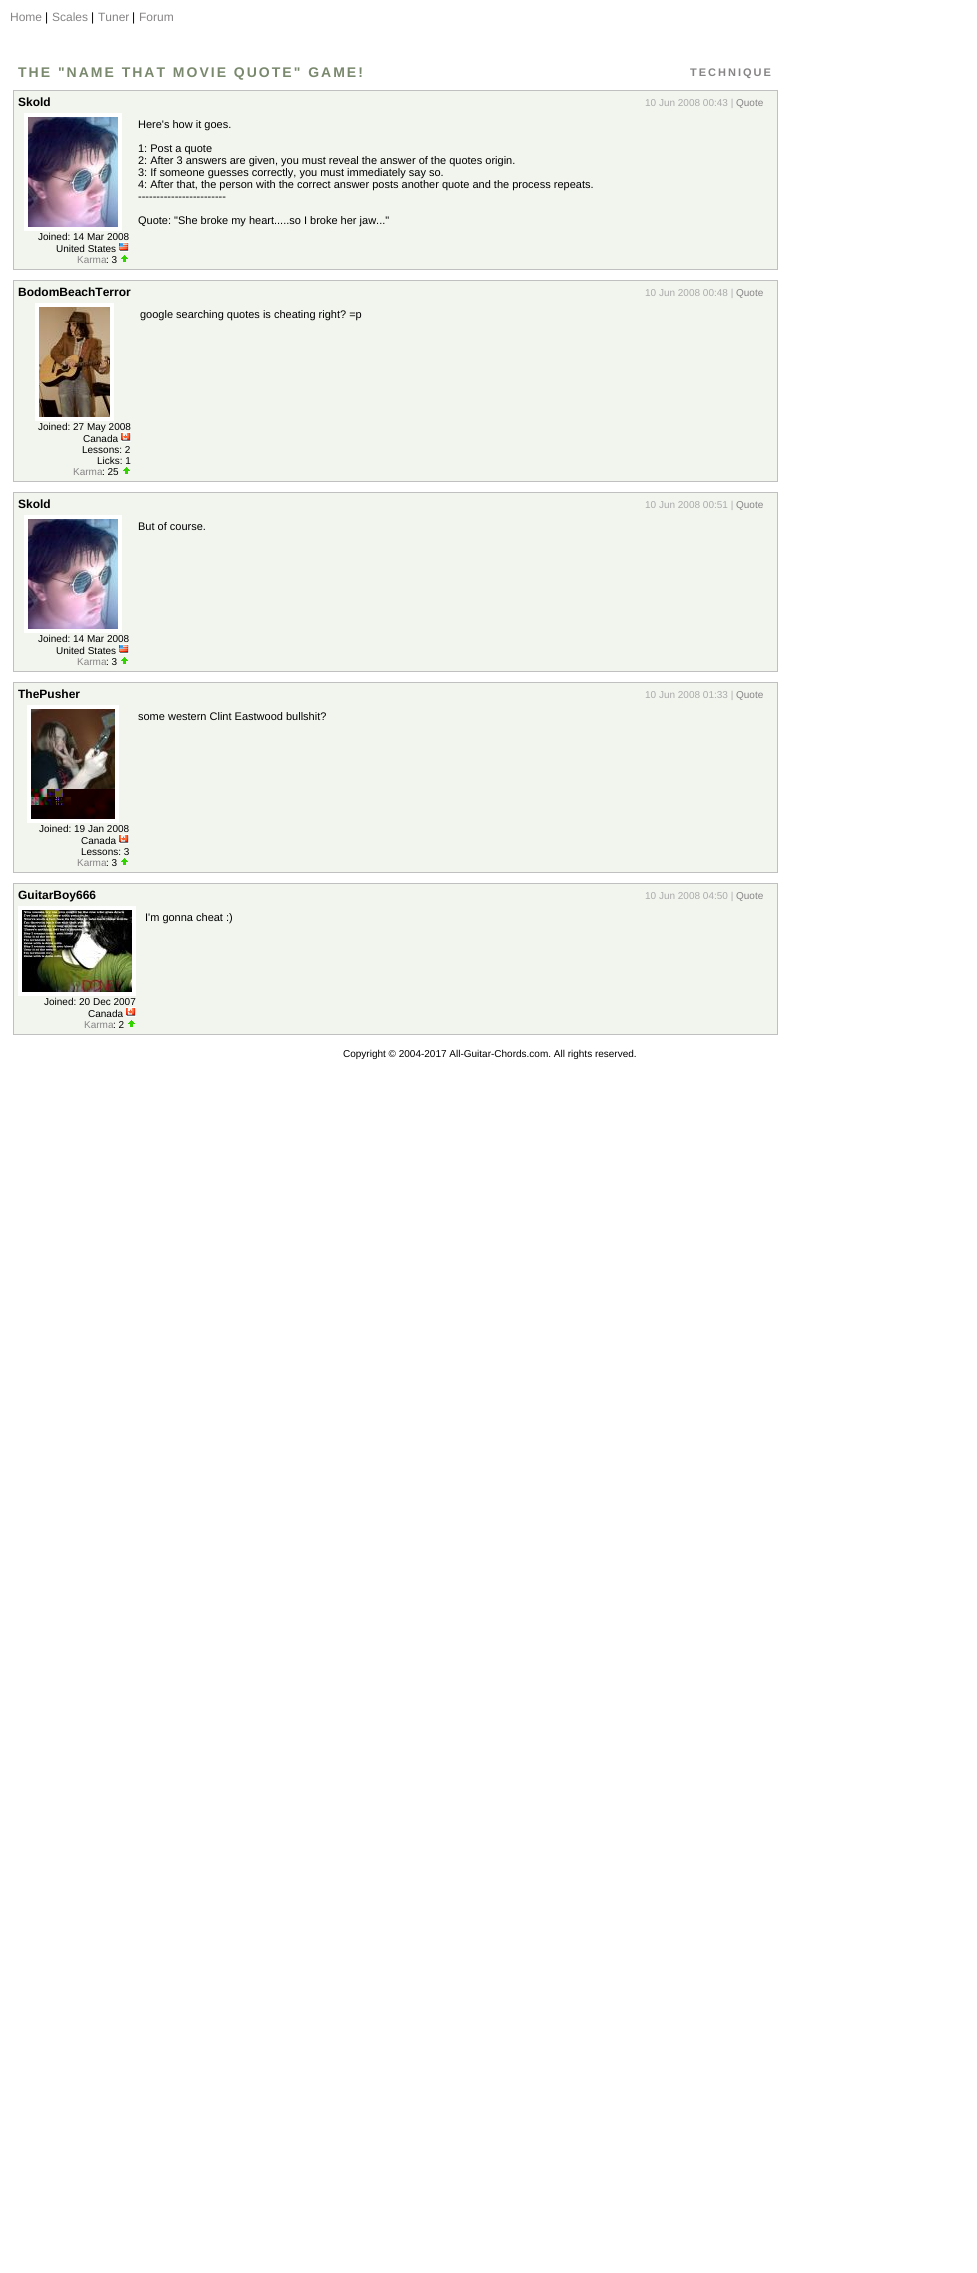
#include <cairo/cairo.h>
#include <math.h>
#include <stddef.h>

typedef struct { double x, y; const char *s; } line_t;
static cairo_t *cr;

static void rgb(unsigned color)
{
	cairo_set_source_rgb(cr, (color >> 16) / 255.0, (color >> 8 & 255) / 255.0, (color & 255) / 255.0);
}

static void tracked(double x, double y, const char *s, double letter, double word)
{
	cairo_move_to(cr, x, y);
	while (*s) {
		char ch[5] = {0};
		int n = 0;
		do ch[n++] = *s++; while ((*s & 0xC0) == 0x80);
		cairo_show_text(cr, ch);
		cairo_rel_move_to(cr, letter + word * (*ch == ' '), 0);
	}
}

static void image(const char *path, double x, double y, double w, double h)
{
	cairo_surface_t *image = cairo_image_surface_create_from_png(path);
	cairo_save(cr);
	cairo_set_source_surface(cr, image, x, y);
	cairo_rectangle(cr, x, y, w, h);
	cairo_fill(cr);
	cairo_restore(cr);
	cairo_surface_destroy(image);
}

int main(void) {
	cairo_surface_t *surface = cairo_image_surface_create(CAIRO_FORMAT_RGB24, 977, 2273);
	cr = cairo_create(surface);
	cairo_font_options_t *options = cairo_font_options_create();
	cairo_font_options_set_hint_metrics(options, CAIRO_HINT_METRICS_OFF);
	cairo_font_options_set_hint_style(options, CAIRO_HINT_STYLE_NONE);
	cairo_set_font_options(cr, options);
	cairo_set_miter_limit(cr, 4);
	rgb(0xffffff);
	cairo_paint(cr);
	rgb(0xf1f5ee);
	cairo_rectangle(cr, 13.5, 90.5, 764, 179);
	cairo_fill_preserve(cr);
	rgb(0xc0c0c0);
	cairo_set_line_width(cr, 1);
	cairo_stroke(cr);
	cairo_rectangle(cr, 26, 115, 94, 114);
	rgb(0xffffff);
	cairo_set_line_width(cr, 4);
	cairo_stroke(cr);
	image("img/1.png", 28, 117, 90, 110);
	image("img/2.png", 119, 242, 10, 10);
	image("img/3.png", 121, 255, 7, 7);
	rgb(0xf1f5ee);
	cairo_rectangle(cr, 13.5, 280.5, 764, 201);
	cairo_fill_preserve(cr);
	rgb(0xc0c0c0);
	cairo_set_line_width(cr, 1);
	cairo_stroke(cr);
	cairo_rectangle(cr, 37, 305, 75, 114);
	rgb(0xffffff);
	cairo_set_line_width(cr, 4);
	cairo_stroke(cr);
	image("img/4.png", 39, 307, 71, 110);
	image("img/3.png", 123, 467, 7, 7);
	rgb(0xf1f5ee);
	cairo_rectangle(cr, 13.5, 492.5, 764, 179);
	cairo_fill_preserve(cr);
	rgb(0xc0c0c0);
	cairo_set_line_width(cr, 1);
	cairo_stroke(cr);
	cairo_rectangle(cr, 26, 517, 94, 114);
	rgb(0xffffff);
	cairo_set_line_width(cr, 4);
	cairo_stroke(cr);
	image("img/1.png", 28, 519, 90, 110);
	image("img/2.png", 119, 644, 10, 10);
	image("img/3.png", 121, 657, 7, 7);
	rgb(0xf1f5ee);
	cairo_rectangle(cr, 13.5, 682.5, 764, 190);
	cairo_fill_preserve(cr);
	rgb(0xc0c0c0);
	cairo_set_line_width(cr, 1);
	cairo_stroke(cr);
	cairo_rectangle(cr, 29, 707, 88, 114);
	rgb(0xffffff);
	cairo_set_line_width(cr, 4);
	cairo_stroke(cr);
	image("img/6.png", 31, 709, 84, 110);
	image("img/5.png", 119, 834, 10, 10);
	image("img/3.png", 121, 858, 7, 7);
	rgb(0xf1f5ee);
	cairo_rectangle(cr, 13.5, 883.5, 764, 151);
	cairo_fill_preserve(cr);
	rgb(0xc0c0c0);
	cairo_set_line_width(cr, 1);
	cairo_stroke(cr);
	cairo_rectangle(cr, 20, 908, 114, 86);
	rgb(0xffffff);
	cairo_set_line_width(cr, 4);
	cairo_stroke(cr);
	image("img/7.png", 22, 910, 110, 82);
	image("img/5.png", 126, 1007, 10, 10);
	image("img/3.png", 128, 1020, 7, 7);
	cairo_select_font_face(cr, "Liberation Sans", CAIRO_FONT_SLANT_NORMAL, CAIRO_FONT_WEIGHT_NORMAL);
	cairo_set_font_size(cr, 12);
	rgb(0x868485);
	cairo_move_to(cr, 10, 21);
	cairo_show_text(cr, "Home");
	rgb(0x000000);
	cairo_move_to(cr, 45, 21);
	cairo_show_text(cr, "|");
	rgb(0x868485);
	cairo_move_to(cr, 52, 21);
	cairo_show_text(cr, "Scales");
	rgb(0x000000);
	cairo_move_to(cr, 91, 21);
	cairo_show_text(cr, "|");
	rgb(0x868485);
	cairo_move_to(cr, 98, 21);
	cairo_show_text(cr, "Tuner");
	rgb(0x000000);
	cairo_move_to(cr, 132, 21);
	cairo_show_text(cr, "|");
	rgb(0x868485);
	cairo_move_to(cr, 139, 21);
	cairo_show_text(cr, "Forum");
	cairo_select_font_face(cr, "Liberation Sans", CAIRO_FONT_SLANT_NORMAL, CAIRO_FONT_WEIGHT_BOLD);
	cairo_set_font_size(cr, 14);
	rgb(0x7a896e);
	tracked(18, 77, "THE \"NAME THAT MOVIE QUOTE\" GAME!", 2, 0);
	cairo_set_font_size(cr, 11);
	rgb(0x868485);
	tracked(690, 76, "TECHNIQUE", 2, 0);
	cairo_set_font_size(cr, 12);
	rgb(0x000000);
	cairo_move_to(cr, 18, 106);
	cairo_show_text(cr, "Skold");
	cairo_select_font_face(cr, "Liberation Sans", CAIRO_FONT_SLANT_NORMAL, CAIRO_FONT_WEIGHT_NORMAL);
	cairo_set_font_size(cr, 10);
	rgb(0xaaaaaa);
	cairo_move_to(cr, 645, 106);
	cairo_show_text(cr, "10 Jun 2008 00:43 |");
	rgb(0x868485);
	cairo_move_to(cr, 736, 106);
	cairo_show_text(cr, "Quote");
	cairo_set_font_size(cr, 11);
	rgb(0x000000);
	{
		static const line_t items[] = {
			{138, 128, "Here's how it goes."},
			{138, 152, "1: Post a quote"},
			{138, 164, "2: After 3 answers are given, you must reveal the answer of the quotes origin."},
			{138, 176, "3: If someone guesses correctly, you must immediately say so."},
			{138, 188, "4: After that, the person with the correct answer posts another quote and the process repeats."},
			{138, 200, "------------------------"},
			{138, 224, "Quote: \"She broke my heart.....so I broke her jaw...\""},
		};
		for (size_t i = 0; i < sizeof items / sizeof *items; i++) {
			cairo_move_to(cr, items[i].x, items[i].y);
			cairo_show_text(cr, items[i].s);
		}
	}
	cairo_set_font_size(cr, 10);
	cairo_move_to(cr, 38, 240);
	cairo_show_text(cr, "Joined: 14 Mar 2008");
	cairo_move_to(cr, 56, 252);
	cairo_show_text(cr, "United States");
	rgb(0x868485);
	cairo_move_to(cr, 77, 263);
	cairo_show_text(cr, "Karma");
	rgb(0x000000);
	cairo_move_to(cr, 106, 263);
	cairo_show_text(cr, ": 3");
	cairo_select_font_face(cr, "Liberation Sans", CAIRO_FONT_SLANT_NORMAL, CAIRO_FONT_WEIGHT_BOLD);
	cairo_set_font_size(cr, 12);
	cairo_move_to(cr, 18, 296);
	cairo_show_text(cr, "BodomBeachTerror");
	cairo_select_font_face(cr, "Liberation Sans", CAIRO_FONT_SLANT_NORMAL, CAIRO_FONT_WEIGHT_NORMAL);
	cairo_set_font_size(cr, 10);
	rgb(0xaaaaaa);
	cairo_move_to(cr, 645, 296);
	cairo_show_text(cr, "10 Jun 2008 00:48 |");
	rgb(0x868485);
	cairo_move_to(cr, 736, 296);
	cairo_show_text(cr, "Quote");
	cairo_set_font_size(cr, 11);
	rgb(0x000000);
	cairo_move_to(cr, 140, 318);
	cairo_show_text(cr, "google searching quotes is cheating right? =p");
	cairo_set_font_size(cr, 10);
	cairo_move_to(cr, 38, 430);
	cairo_show_text(cr, "Joined: 27 May 2008");
	cairo_move_to(cr, 83, 442);
	cairo_show_text(cr, "Canada");
	image("img/5.png", 121, 432, 10, 10);
	cairo_move_to(cr, 82, 453);
	cairo_show_text(cr, "Lessons: 2");
	cairo_move_to(cr, 97, 464);
	cairo_show_text(cr, "Licks: 1");
	rgb(0x868485);
	cairo_move_to(cr, 73, 475);
	cairo_show_text(cr, "Karma");
	rgb(0x000000);
	cairo_move_to(cr, 102, 475);
	cairo_show_text(cr, ": 25");
	cairo_select_font_face(cr, "Liberation Sans", CAIRO_FONT_SLANT_NORMAL, CAIRO_FONT_WEIGHT_BOLD);
	cairo_set_font_size(cr, 12);
	cairo_move_to(cr, 18, 508);
	cairo_show_text(cr, "Skold");
	cairo_select_font_face(cr, "Liberation Sans", CAIRO_FONT_SLANT_NORMAL, CAIRO_FONT_WEIGHT_NORMAL);
	cairo_set_font_size(cr, 10);
	rgb(0xaaaaaa);
	cairo_move_to(cr, 645, 508);
	cairo_show_text(cr, "10 Jun 2008 00:51 |");
	rgb(0x868485);
	cairo_move_to(cr, 736, 508);
	cairo_show_text(cr, "Quote");
	cairo_set_font_size(cr, 11);
	rgb(0x000000);
	cairo_move_to(cr, 138, 530);
	cairo_show_text(cr, "But of course.");
	cairo_set_font_size(cr, 10);
	cairo_move_to(cr, 38, 642);
	cairo_show_text(cr, "Joined: 14 Mar 2008");
	cairo_move_to(cr, 56, 654);
	cairo_show_text(cr, "United States");
	rgb(0x868485);
	cairo_move_to(cr, 77, 665);
	cairo_show_text(cr, "Karma");
	rgb(0x000000);
	cairo_move_to(cr, 106, 665);
	cairo_show_text(cr, ": 3");
	cairo_select_font_face(cr, "Liberation Sans", CAIRO_FONT_SLANT_NORMAL, CAIRO_FONT_WEIGHT_BOLD);
	cairo_set_font_size(cr, 12);
	cairo_move_to(cr, 18, 698);
	cairo_show_text(cr, "ThePusher");
	cairo_select_font_face(cr, "Liberation Sans", CAIRO_FONT_SLANT_NORMAL, CAIRO_FONT_WEIGHT_NORMAL);
	cairo_set_font_size(cr, 10);
	rgb(0xaaaaaa);
	cairo_move_to(cr, 645, 698);
	cairo_show_text(cr, "10 Jun 2008 01:33 |");
	rgb(0x868485);
	cairo_move_to(cr, 736, 698);
	cairo_show_text(cr, "Quote");
	cairo_set_font_size(cr, 11);
	rgb(0x000000);
	cairo_move_to(cr, 138, 720);
	cairo_show_text(cr, "some western Clint Eastwood bullshit?");
	cairo_set_font_size(cr, 10);
	{
		static const line_t items[] = {
			{39, 832, "Joined: 19 Jan 2008"},
			{81, 844, "Canada"},
			{81, 855, "Lessons: 3"},
		};
		for (size_t i = 0; i < sizeof items / sizeof *items; i++) {
			cairo_move_to(cr, items[i].x, items[i].y);
			cairo_show_text(cr, items[i].s);
		}
	}
	rgb(0x868485);
	cairo_move_to(cr, 77, 866);
	cairo_show_text(cr, "Karma");
	rgb(0x000000);
	cairo_move_to(cr, 106, 866);
	cairo_show_text(cr, ": 3");
	cairo_select_font_face(cr, "Liberation Sans", CAIRO_FONT_SLANT_NORMAL, CAIRO_FONT_WEIGHT_BOLD);
	cairo_set_font_size(cr, 12);
	cairo_move_to(cr, 18, 899);
	cairo_show_text(cr, "GuitarBoy666");
	cairo_select_font_face(cr, "Liberation Sans", CAIRO_FONT_SLANT_NORMAL, CAIRO_FONT_WEIGHT_NORMAL);
	cairo_set_font_size(cr, 10);
	rgb(0xaaaaaa);
	cairo_move_to(cr, 645, 899);
	cairo_show_text(cr, "10 Jun 2008 04:50 |");
	rgb(0x868485);
	cairo_move_to(cr, 736, 899);
	cairo_show_text(cr, "Quote");
	cairo_set_font_size(cr, 11);
	rgb(0x000000);
	cairo_move_to(cr, 145, 921);
	cairo_show_text(cr, "I'm gonna cheat :)");
	cairo_set_font_size(cr, 10);
	cairo_move_to(cr, 44, 1005);
	cairo_show_text(cr, "Joined: 20 Dec 2007");
	cairo_move_to(cr, 88, 1017);
	cairo_show_text(cr, "Canada");
	rgb(0x868485);
	cairo_move_to(cr, 84, 1028);
	cairo_show_text(cr, "Karma");
	rgb(0x000000);
	cairo_move_to(cr, 113, 1028);
	cairo_show_text(cr, ": 2");
	cairo_move_to(cr, 343, 1057);
	cairo_show_text(cr, "Copyright © 2004-2017 All-Guitar-Chords.com. All rights reserved.");
	cairo_surface_write_to_png(surface, "page.png");
	cairo_font_options_destroy(options);
	cairo_destroy(cr);
	cairo_surface_destroy(surface);
	return 0;
}
